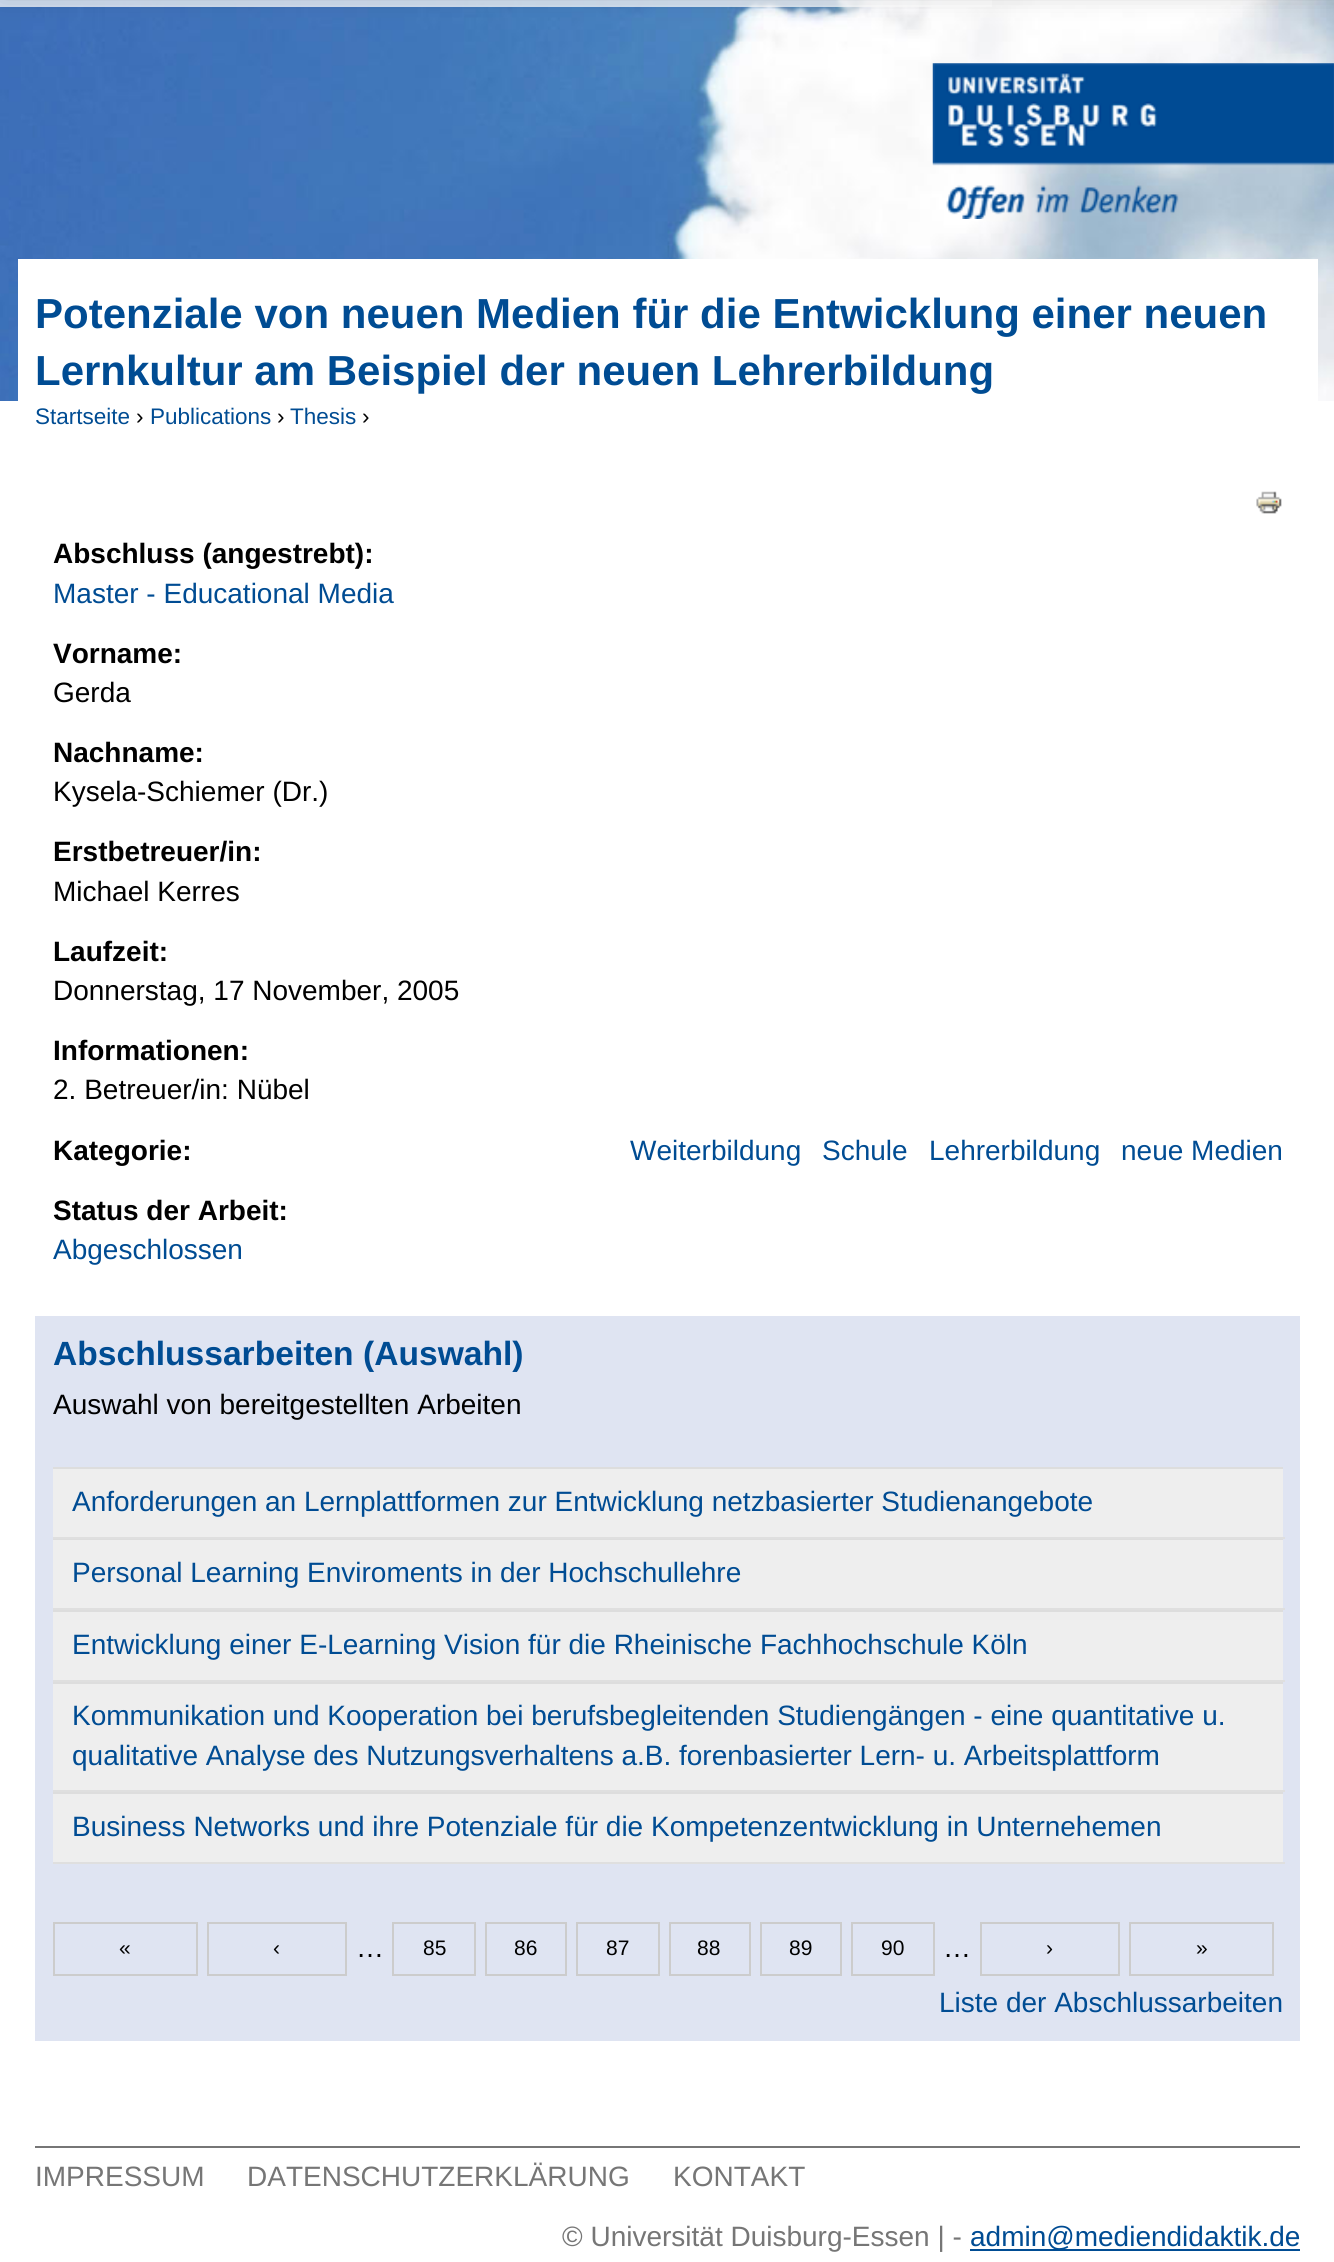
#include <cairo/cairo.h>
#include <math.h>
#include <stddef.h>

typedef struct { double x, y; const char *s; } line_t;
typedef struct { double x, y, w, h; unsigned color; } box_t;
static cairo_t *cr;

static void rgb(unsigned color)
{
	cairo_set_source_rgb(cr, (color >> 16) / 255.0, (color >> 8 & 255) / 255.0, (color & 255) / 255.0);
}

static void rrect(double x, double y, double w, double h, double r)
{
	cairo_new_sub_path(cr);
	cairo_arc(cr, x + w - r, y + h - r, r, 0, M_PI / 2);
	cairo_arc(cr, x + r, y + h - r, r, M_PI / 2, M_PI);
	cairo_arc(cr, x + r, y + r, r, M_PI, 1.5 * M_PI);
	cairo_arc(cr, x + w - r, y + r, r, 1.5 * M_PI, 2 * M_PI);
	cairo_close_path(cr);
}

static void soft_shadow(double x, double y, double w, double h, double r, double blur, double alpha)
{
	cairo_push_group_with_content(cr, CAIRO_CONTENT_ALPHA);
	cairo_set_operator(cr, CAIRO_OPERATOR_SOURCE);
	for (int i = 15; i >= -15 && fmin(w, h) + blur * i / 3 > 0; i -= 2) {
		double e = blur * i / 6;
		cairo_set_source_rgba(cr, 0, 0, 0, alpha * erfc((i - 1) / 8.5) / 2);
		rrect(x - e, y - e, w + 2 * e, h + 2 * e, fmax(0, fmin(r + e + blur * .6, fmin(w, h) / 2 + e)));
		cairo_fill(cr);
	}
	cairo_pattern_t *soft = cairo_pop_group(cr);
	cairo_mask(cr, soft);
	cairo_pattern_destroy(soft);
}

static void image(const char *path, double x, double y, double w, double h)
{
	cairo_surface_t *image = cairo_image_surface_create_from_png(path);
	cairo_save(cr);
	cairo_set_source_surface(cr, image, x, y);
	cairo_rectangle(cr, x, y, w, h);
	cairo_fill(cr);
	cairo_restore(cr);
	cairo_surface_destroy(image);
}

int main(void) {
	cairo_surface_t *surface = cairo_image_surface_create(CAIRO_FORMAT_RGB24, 1334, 2262);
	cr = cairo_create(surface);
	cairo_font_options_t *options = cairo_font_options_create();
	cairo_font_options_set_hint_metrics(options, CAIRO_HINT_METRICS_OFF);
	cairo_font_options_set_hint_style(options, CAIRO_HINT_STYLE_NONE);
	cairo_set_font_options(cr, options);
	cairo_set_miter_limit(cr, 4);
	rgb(0xffffff);
	cairo_paint(cr);
	image("img/1.png", 0, 0, 1334, 401);
	cairo_set_source_rgba(cr, 1, 1, 1, 0.75);
	cairo_rectangle(cr, 0, 0, 992, 7);
	cairo_fill(cr);
	rgb(0x000000);
	soft_shadow(2, -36, 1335, 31, 0, 12, 0.2);
	image("img/2.png", 932, 63, 402, 156);
	rgb(0xffffff);
	cairo_rectangle(cr, 18, 259, 1300, 142);
	cairo_fill(cr);
	image("img/3.png", 1256, 491, 26, 23);
	{
		static const box_t items[] = {
			{35, 1316, 1265, 725, 0xdfe4f2},
			{53, 1469, 1230, 68, 0xeeeeee},
			{53, 1537, 1232, 2, 0xdfdfdf},
			{53, 1467, 1230, 2, 0xdddddd},
			{53, 1540, 1230, 68, 0xeeeeee},
			{53, 1608, 1232, 2, 0xdfdfdf},
			{53, 1539, 1230, 1, 0xdddddd},
			{53, 1612, 1230, 68, 0xeeeeee},
			{53, 1680, 1232, 2, 0xdfdfdf},
			{53, 1610, 1230, 2, 0xdddddd},
			{53, 1684, 1230, 106, 0xeeeeee},
			{53, 1790, 1232, 2, 0xdfdfdf},
			{53, 1682, 1230, 2, 0xdddddd},
			{53, 1794, 1230, 68, 0xeeeeee},
			{53, 1862, 1232, 2, 0xdfdfdf},
			{53, 1792, 1230, 2, 0xdddddd},
		};
		for (size_t i = 0; i < sizeof items / sizeof *items; i++) {
			rgb(items[i].color);
			cairo_rectangle(cr, items[i].x, items[i].y, items[i].w, items[i].h);
			cairo_fill(cr);
		}
	}
	cairo_rectangle(cr, 54, 1923, 143, 52);
	rgb(0xcccccc);
	cairo_stroke(cr);
	cairo_rectangle(cr, 208, 1923, 138, 52);
	cairo_stroke(cr);
	cairo_rectangle(cr, 393, 1923, 82, 52);
	cairo_stroke(cr);
	cairo_rectangle(cr, 486, 1923, 80, 52);
	cairo_stroke(cr);
	cairo_rectangle(cr, 577, 1923, 82, 52);
	cairo_stroke(cr);
	cairo_rectangle(cr, 670, 1923, 80, 52);
	cairo_stroke(cr);
	cairo_rectangle(cr, 761, 1923, 80, 52);
	cairo_stroke(cr);
	cairo_rectangle(cr, 852, 1923, 82, 52);
	cairo_stroke(cr);
	cairo_rectangle(cr, 981, 1923, 138, 52);
	cairo_stroke(cr);
	cairo_rectangle(cr, 1130, 1923, 143, 52);
	cairo_stroke(cr);
	rgb(0x767676);
	cairo_rectangle(cr, 35, 2146, 1265, 2);
	cairo_fill(cr);
	rgb(0x004c93);
	cairo_rectangle(cr, 970, 2249, 330, 2);
	cairo_fill(cr);
	cairo_select_font_face(cr, "Liberation Sans", CAIRO_FONT_SLANT_NORMAL, CAIRO_FONT_WEIGHT_BOLD);
	cairo_set_font_size(cr, 42);
	cairo_move_to(cr, 35, 328);
	cairo_show_text(cr, "Potenziale von neuen Medien für die Entwicklung einer neuen");
	cairo_move_to(cr, 35, 385);
	cairo_show_text(cr, "Lernkultur am Beispiel der neuen Lehrerbildung");
	cairo_select_font_face(cr, "Liberation Sans", CAIRO_FONT_SLANT_NORMAL, CAIRO_FONT_WEIGHT_NORMAL);
	cairo_set_font_size(cr, 22.5);
	cairo_move_to(cr, 35, 424);
	cairo_show_text(cr, "Startseite");
	rgb(0x000000);
	cairo_move_to(cr, 136, 424);
	cairo_show_text(cr, "›");
	rgb(0x004c93);
	cairo_move_to(cr, 150, 424);
	cairo_show_text(cr, "Publications");
	rgb(0x000000);
	cairo_move_to(cr, 277, 424);
	cairo_show_text(cr, "›");
	rgb(0x004c93);
	cairo_move_to(cr, 290, 424);
	cairo_show_text(cr, "Thesis");
	rgb(0x000000);
	cairo_move_to(cr, 362, 424);
	cairo_show_text(cr, "›");
	cairo_select_font_face(cr, "Liberation Sans", CAIRO_FONT_SLANT_NORMAL, CAIRO_FONT_WEIGHT_BOLD);
	cairo_set_font_size(cr, 28);
	cairo_move_to(cr, 53, 563);
	cairo_show_text(cr, "Abschluss (angestrebt):");
	cairo_select_font_face(cr, "Liberation Sans", CAIRO_FONT_SLANT_NORMAL, CAIRO_FONT_WEIGHT_NORMAL);
	rgb(0x004c93);
	cairo_move_to(cr, 53, 603);
	cairo_show_text(cr, "Master - Educational Media");
	cairo_select_font_face(cr, "Liberation Sans", CAIRO_FONT_SLANT_NORMAL, CAIRO_FONT_WEIGHT_BOLD);
	rgb(0x000000);
	cairo_move_to(cr, 53, 663);
	cairo_show_text(cr, "Vorname:");
	cairo_select_font_face(cr, "Liberation Sans", CAIRO_FONT_SLANT_NORMAL, CAIRO_FONT_WEIGHT_NORMAL);
	cairo_move_to(cr, 53, 702);
	cairo_show_text(cr, "Gerda");
	cairo_select_font_face(cr, "Liberation Sans", CAIRO_FONT_SLANT_NORMAL, CAIRO_FONT_WEIGHT_BOLD);
	cairo_move_to(cr, 53, 762);
	cairo_show_text(cr, "Nachname:");
	cairo_select_font_face(cr, "Liberation Sans", CAIRO_FONT_SLANT_NORMAL, CAIRO_FONT_WEIGHT_NORMAL);
	cairo_move_to(cr, 53, 801);
	cairo_show_text(cr, "Kysela-Schiemer (Dr.)");
	cairo_select_font_face(cr, "Liberation Sans", CAIRO_FONT_SLANT_NORMAL, CAIRO_FONT_WEIGHT_BOLD);
	cairo_move_to(cr, 53, 861);
	cairo_show_text(cr, "Erstbetreuer/in:");
	cairo_select_font_face(cr, "Liberation Sans", CAIRO_FONT_SLANT_NORMAL, CAIRO_FONT_WEIGHT_NORMAL);
	cairo_move_to(cr, 53, 901);
	cairo_show_text(cr, "Michael Kerres");
	cairo_select_font_face(cr, "Liberation Sans", CAIRO_FONT_SLANT_NORMAL, CAIRO_FONT_WEIGHT_BOLD);
	cairo_move_to(cr, 53, 961);
	cairo_show_text(cr, "Laufzeit:");
	cairo_select_font_face(cr, "Liberation Sans", CAIRO_FONT_SLANT_NORMAL, CAIRO_FONT_WEIGHT_NORMAL);
	cairo_move_to(cr, 53, 1000);
	cairo_show_text(cr, "Donnerstag, 17 November, 2005");
	cairo_select_font_face(cr, "Liberation Sans", CAIRO_FONT_SLANT_NORMAL, CAIRO_FONT_WEIGHT_BOLD);
	cairo_move_to(cr, 53, 1060);
	cairo_show_text(cr, "Informationen:");
	cairo_select_font_face(cr, "Liberation Sans", CAIRO_FONT_SLANT_NORMAL, CAIRO_FONT_WEIGHT_NORMAL);
	cairo_move_to(cr, 53, 1099);
	cairo_show_text(cr, "2. Betreuer/in: Nübel");
	cairo_select_font_face(cr, "Liberation Sans", CAIRO_FONT_SLANT_NORMAL, CAIRO_FONT_WEIGHT_BOLD);
	cairo_move_to(cr, 53, 1160);
	cairo_show_text(cr, "Kategorie:");
	cairo_select_font_face(cr, "Liberation Sans", CAIRO_FONT_SLANT_NORMAL, CAIRO_FONT_WEIGHT_NORMAL);
	rgb(0x004c93);
	{
		static const line_t items[] = {
			{630, 1160, "Weiterbildung"},
			{822, 1160, "Schule"},
			{929, 1160, "Lehrerbildung"},
			{1121, 1160, "neue Medien"},
		};
		for (size_t i = 0; i < sizeof items / sizeof *items; i++) {
			cairo_move_to(cr, items[i].x, items[i].y);
			cairo_show_text(cr, items[i].s);
		}
	}
	cairo_select_font_face(cr, "Liberation Sans", CAIRO_FONT_SLANT_NORMAL, CAIRO_FONT_WEIGHT_BOLD);
	rgb(0x000000);
	cairo_move_to(cr, 53, 1220);
	cairo_show_text(cr, "Status der Arbeit:");
	cairo_select_font_face(cr, "Liberation Sans", CAIRO_FONT_SLANT_NORMAL, CAIRO_FONT_WEIGHT_NORMAL);
	rgb(0x004c93);
	cairo_move_to(cr, 53, 1259);
	cairo_show_text(cr, "Abgeschlossen");
	cairo_select_font_face(cr, "Liberation Sans", CAIRO_FONT_SLANT_NORMAL, CAIRO_FONT_WEIGHT_BOLD);
	cairo_set_font_size(cr, 33.6);
	cairo_move_to(cr, 53, 1365);
	cairo_show_text(cr, "Abschlussarbeiten (Auswahl)");
	cairo_select_font_face(cr, "Liberation Sans", CAIRO_FONT_SLANT_NORMAL, CAIRO_FONT_WEIGHT_NORMAL);
	cairo_set_font_size(cr, 28);
	rgb(0x000000);
	cairo_move_to(cr, 53, 1414);
	cairo_show_text(cr, "Auswahl von bereitgestellten Arbeiten");
	rgb(0x004c93);
	{
		static const line_t items[] = {
			{72, 1511, "Anforderungen an Lernplattformen zur Entwicklung netzbasierter Studienangebote"},
			{72, 1582, "Personal Learning Enviroments in der Hochschullehre"},
			{72, 1654, "Entwicklung einer E-Learning Vision für die Rheinische Fachhochschule Köln"},
			{72, 1725, "Kommunikation und Kooperation bei berufsbegleitenden Studiengängen - eine quantitative u."},
			{72, 1765, "qualitative Analyse des Nutzungsverhaltens a.B. forenbasierter Lern- u. Arbeitsplattform"},
			{72, 1836, "Business Networks und ihre Potenziale für die Kompetenzentwicklung in Unternehemen"},
		};
		for (size_t i = 0; i < sizeof items / sizeof *items; i++) {
			cairo_move_to(cr, items[i].x, items[i].y);
			cairo_show_text(cr, items[i].s);
		}
	}
	cairo_set_font_size(cr, 21);
	rgb(0x000000);
	{
		static const line_t items[] = {
			{119, 1955, "«"},
			{273, 1955, "‹"},
			{423, 1955, "85"},
			{514, 1955, "86"},
			{606, 1955, "87"},
			{697, 1955, "88"},
			{789, 1955, "89"},
			{881, 1955, "90"},
			{1046, 1955, "›"},
			{1196, 1955, "»"},
		};
		for (size_t i = 0; i < sizeof items / sizeof *items; i++) {
			cairo_move_to(cr, items[i].x, items[i].y);
			cairo_show_text(cr, items[i].s);
		}
	}
	cairo_set_font_size(cr, 28);
	cairo_move_to(cr, 356, 1957);
	cairo_show_text(cr, "…");
	cairo_move_to(cr, 943, 1957);
	cairo_show_text(cr, "…");
	rgb(0x004c93);
	cairo_move_to(cr, 939, 2012);
	cairo_show_text(cr, "Liste der Abschlussarbeiten");
	rgb(0x767676);
	{
		static const line_t items[] = {
			{35, 2186, "IMPRESSUM"},
			{247, 2186, "DATENSCHUTZERKLÄRUNG"},
			{673, 2186, "KONTAKT"},
			{562, 2246, "© Universität Duisburg-Essen | -"},
		};
		for (size_t i = 0; i < sizeof items / sizeof *items; i++) {
			cairo_move_to(cr, items[i].x, items[i].y);
			cairo_show_text(cr, items[i].s);
		}
	}
	rgb(0x004c93);
	cairo_move_to(cr, 970, 2246);
	cairo_show_text(cr, "admin@mediendidaktik.de");
	cairo_surface_write_to_png(surface, "page.png");
	cairo_font_options_destroy(options);
	cairo_destroy(cr);
	cairo_surface_destroy(surface);
	return 0;
}
